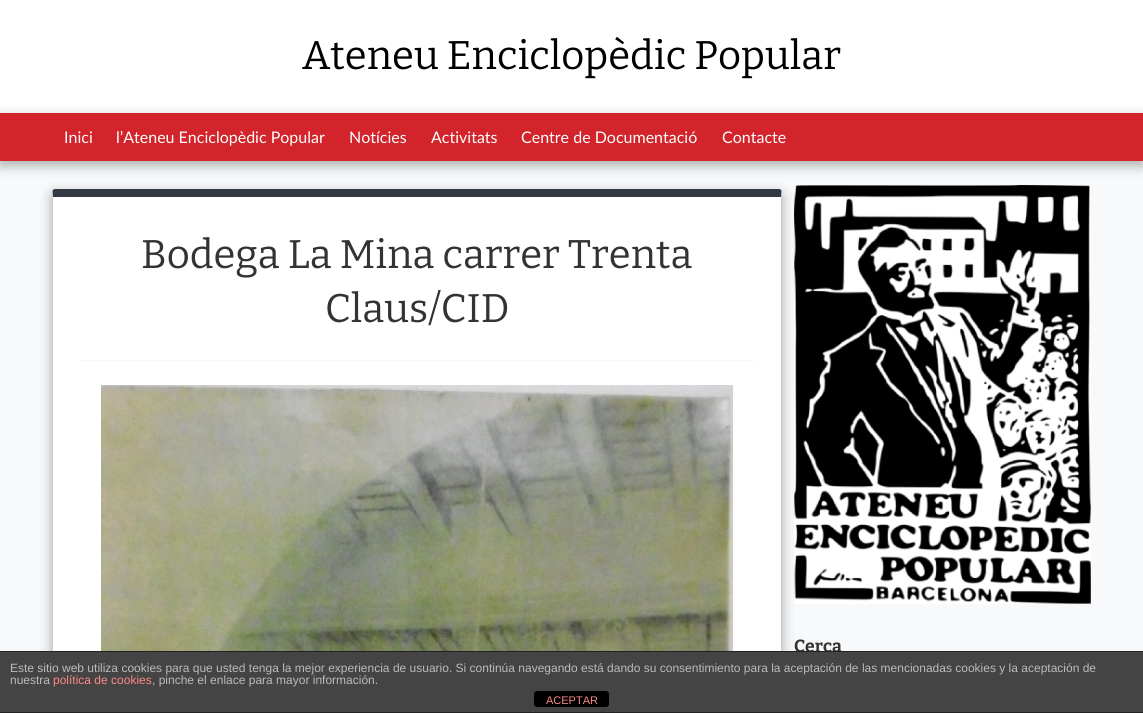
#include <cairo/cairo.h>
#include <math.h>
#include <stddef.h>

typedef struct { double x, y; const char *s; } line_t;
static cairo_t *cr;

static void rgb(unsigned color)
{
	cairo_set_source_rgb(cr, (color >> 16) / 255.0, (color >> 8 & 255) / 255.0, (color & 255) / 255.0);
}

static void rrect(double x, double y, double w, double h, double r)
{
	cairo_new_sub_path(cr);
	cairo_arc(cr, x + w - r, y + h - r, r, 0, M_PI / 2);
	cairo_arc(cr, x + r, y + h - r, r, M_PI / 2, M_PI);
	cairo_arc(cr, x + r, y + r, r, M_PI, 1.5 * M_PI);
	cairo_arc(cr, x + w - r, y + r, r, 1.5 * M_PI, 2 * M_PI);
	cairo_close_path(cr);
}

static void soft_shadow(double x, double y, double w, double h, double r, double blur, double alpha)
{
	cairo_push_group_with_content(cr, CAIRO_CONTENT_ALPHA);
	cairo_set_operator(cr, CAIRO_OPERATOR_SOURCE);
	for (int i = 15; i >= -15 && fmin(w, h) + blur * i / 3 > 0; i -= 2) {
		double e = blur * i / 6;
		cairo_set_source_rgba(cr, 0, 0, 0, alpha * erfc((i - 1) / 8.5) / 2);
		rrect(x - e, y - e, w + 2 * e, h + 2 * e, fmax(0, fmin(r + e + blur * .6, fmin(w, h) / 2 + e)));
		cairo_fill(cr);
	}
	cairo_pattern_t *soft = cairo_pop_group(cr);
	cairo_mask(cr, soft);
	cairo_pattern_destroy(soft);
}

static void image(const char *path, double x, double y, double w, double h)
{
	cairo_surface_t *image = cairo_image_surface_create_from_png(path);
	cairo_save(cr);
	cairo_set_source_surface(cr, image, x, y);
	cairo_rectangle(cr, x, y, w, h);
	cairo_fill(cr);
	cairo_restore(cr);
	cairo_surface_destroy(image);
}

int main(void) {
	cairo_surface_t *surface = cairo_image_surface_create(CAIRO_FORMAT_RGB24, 1143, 713);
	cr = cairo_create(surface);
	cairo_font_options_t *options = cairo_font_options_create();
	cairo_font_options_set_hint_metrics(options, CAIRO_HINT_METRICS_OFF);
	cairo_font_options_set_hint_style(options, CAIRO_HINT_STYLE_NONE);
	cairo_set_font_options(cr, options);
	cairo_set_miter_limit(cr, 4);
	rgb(0xf8f9fa);
	cairo_paint(cr);
	rgb(0xffffff);
	cairo_rectangle(cr, 0, 0, 1143, 113);
	cairo_fill(cr);
	rgb(0x000000);
	soft_shadow(0, 117, 1143, 48, 0, 7.5, 0.15);
	soft_shadow(0, 118, 1143, 48, 0, 5.5, 0.18);
	rgb(0xd2242a);
	cairo_rectangle(cr, 0, 113, 1143, 48);
	cairo_fill(cr);
	rgb(0x000000);
	soft_shadow(52, 193, 730, 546, 3, 7.5, 0.15);
	soft_shadow(52, 194, 730, 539, 3, 5.5, 0.18);
	rgb(0xffffff);
	cairo_new_path(cr);
	cairo_move_to(cr, 55, 197);
	cairo_line_to(cr, 781, 197);
	cairo_line_to(cr, 781, 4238);
	cairo_curve_to(cr, 781, 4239, 780, 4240, 779, 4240);
	cairo_line_to(cr, 55, 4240);
	cairo_curve_to(cr, 54, 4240, 53, 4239, 53, 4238);
	cairo_line_to(cr, 53, 197);
	cairo_close_path(cr);
	cairo_fill(cr);
	rgb(0x323944);
	cairo_new_path(cr);
	cairo_move_to(cr, 55, 189);
	cairo_curve_to(cr, 51, 189, 53, 194, 53, 197);
	cairo_line_to(cr, 781, 197);
	cairo_curve_to(cr, 781, 194, 783, 189, 779, 189);
	cairo_close_path(cr);
	cairo_fill(cr);
	rgb(0xcccccc);
	cairo_new_path(cr);
	cairo_move_to(cr, 782, 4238);
	cairo_line_to(cr, 782, 191);
	cairo_line_to(cr, 781, 197);
	cairo_line_to(cr, 781, 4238);
	cairo_line_to(cr, 780, 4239);
	cairo_line_to(cr, 781, 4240);
	cairo_close_path(cr);
	cairo_fill(cr);
	cairo_new_path(cr);
	cairo_move_to(cr, 52, 192);
	cairo_line_to(cr, 52, 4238);
	cairo_line_to(cr, 53, 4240);
	cairo_line_to(cr, 54, 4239);
	cairo_line_to(cr, 53, 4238);
	cairo_line_to(cr, 53, 197);
	cairo_line_to(cr, 52, 191);
	cairo_close_path(cr);
	cairo_fill(cr);
	rgb(0xf8f9fa);
	cairo_rectangle(cr, 77, 360, 680, 1);
	cairo_fill(cr);
	image("img/1.png", 101, 385, 632, 266);
	image("img/2.png", 794, 185, 297, 419);
	rgb(0x222222);
	cairo_rectangle(cr, 0, 712, 1143, 1);
	cairo_fill(cr);
	cairo_select_font_face(cr, "Bitter", CAIRO_FONT_SLANT_NORMAL, CAIRO_FONT_WEIGHT_NORMAL);
	cairo_set_font_size(cr, 40);
	rgb(0x000000);
	cairo_move_to(cr, 302, 69);
	cairo_show_text(cr, "Ateneu Enciclopèdic Popular");
	cairo_select_font_face(cr, "Lato", CAIRO_FONT_SLANT_NORMAL, CAIRO_FONT_WEIGHT_NORMAL);
	cairo_set_font_size(cr, 16);
	rgb(0xffffff);
	{
		static const line_t items[] = {
			{64, 143, "Inici"},
			{116, 143, "l’Ateneu Enciclopèdic Popular"},
			{349, 143, "Notícies"},
			{431, 143, "Activitats"},
			{521, 143, "Centre de Documentació"},
			{722, 143, "Contacte"},
		};
		for (size_t i = 0; i < sizeof items / sizeof *items; i++) {
			cairo_move_to(cr, items[i].x, items[i].y);
			cairo_show_text(cr, items[i].s);
		}
	}
	cairo_select_font_face(cr, "Bitter", CAIRO_FONT_SLANT_NORMAL, CAIRO_FONT_WEIGHT_NORMAL);
	cairo_set_font_size(cr, 40);
	rgb(0x333333);
	cairo_move_to(cr, 141, 268);
	cairo_show_text(cr, "Bodega La Mina carrer Trenta");
	cairo_move_to(cr, 325, 322);
	cairo_show_text(cr, "Claus/CID");
	cairo_select_font_face(cr, "Bitter", CAIRO_FONT_SLANT_NORMAL, CAIRO_FONT_WEIGHT_BOLD);
	cairo_set_font_size(cr, 17.5);
	cairo_move_to(cr, 794, 652);
	cairo_show_text(cr, "Cerca");
	rgb(0x444444);
	cairo_rectangle(cr, 0, 652, 1143, 60);
	cairo_fill(cr);
	rgb(0x222222);
	cairo_rectangle(cr, 0, 651, 1143, 1);
	cairo_fill(cr);
	cairo_select_font_face(cr, "Liberation Sans", CAIRO_FONT_SLANT_NORMAL, CAIRO_FONT_WEIGHT_NORMAL);
	cairo_set_font_size(cr, 12);
	rgb(0xbbbbbb);
	cairo_move_to(cr, 10, 672);
	cairo_show_text(cr, "Este sitio web utiliza cookies para que usted tenga la mejor experiencia de usuario. Si continúa navegando está dando su consentimiento para la aceptación de las mencionadas cookies y la aceptación de");
	cairo_move_to(cr, 10, 684);
	cairo_show_text(cr, "nuestra");
	rgb(0xff8888);
	cairo_move_to(cr, 53, 684);
	cairo_show_text(cr, "política de cookies");
	rgb(0xbbbbbb);
	cairo_move_to(cr, 152, 684);
	cairo_show_text(cr, ", pinche el enlace para mayor información.");
	rgb(0x000000);
	rrect(534, 691, 75, 16, 3);
	cairo_fill(cr);
	cairo_set_font_size(cr, 11);
	rgb(0xff8888);
	cairo_move_to(cr, 546, 704);
	cairo_show_text(cr, "ACEPTAR");
	cairo_surface_write_to_png(surface, "page.png");
	cairo_font_options_destroy(options);
	cairo_destroy(cr);
	cairo_surface_destroy(surface);
	return 0;
}
